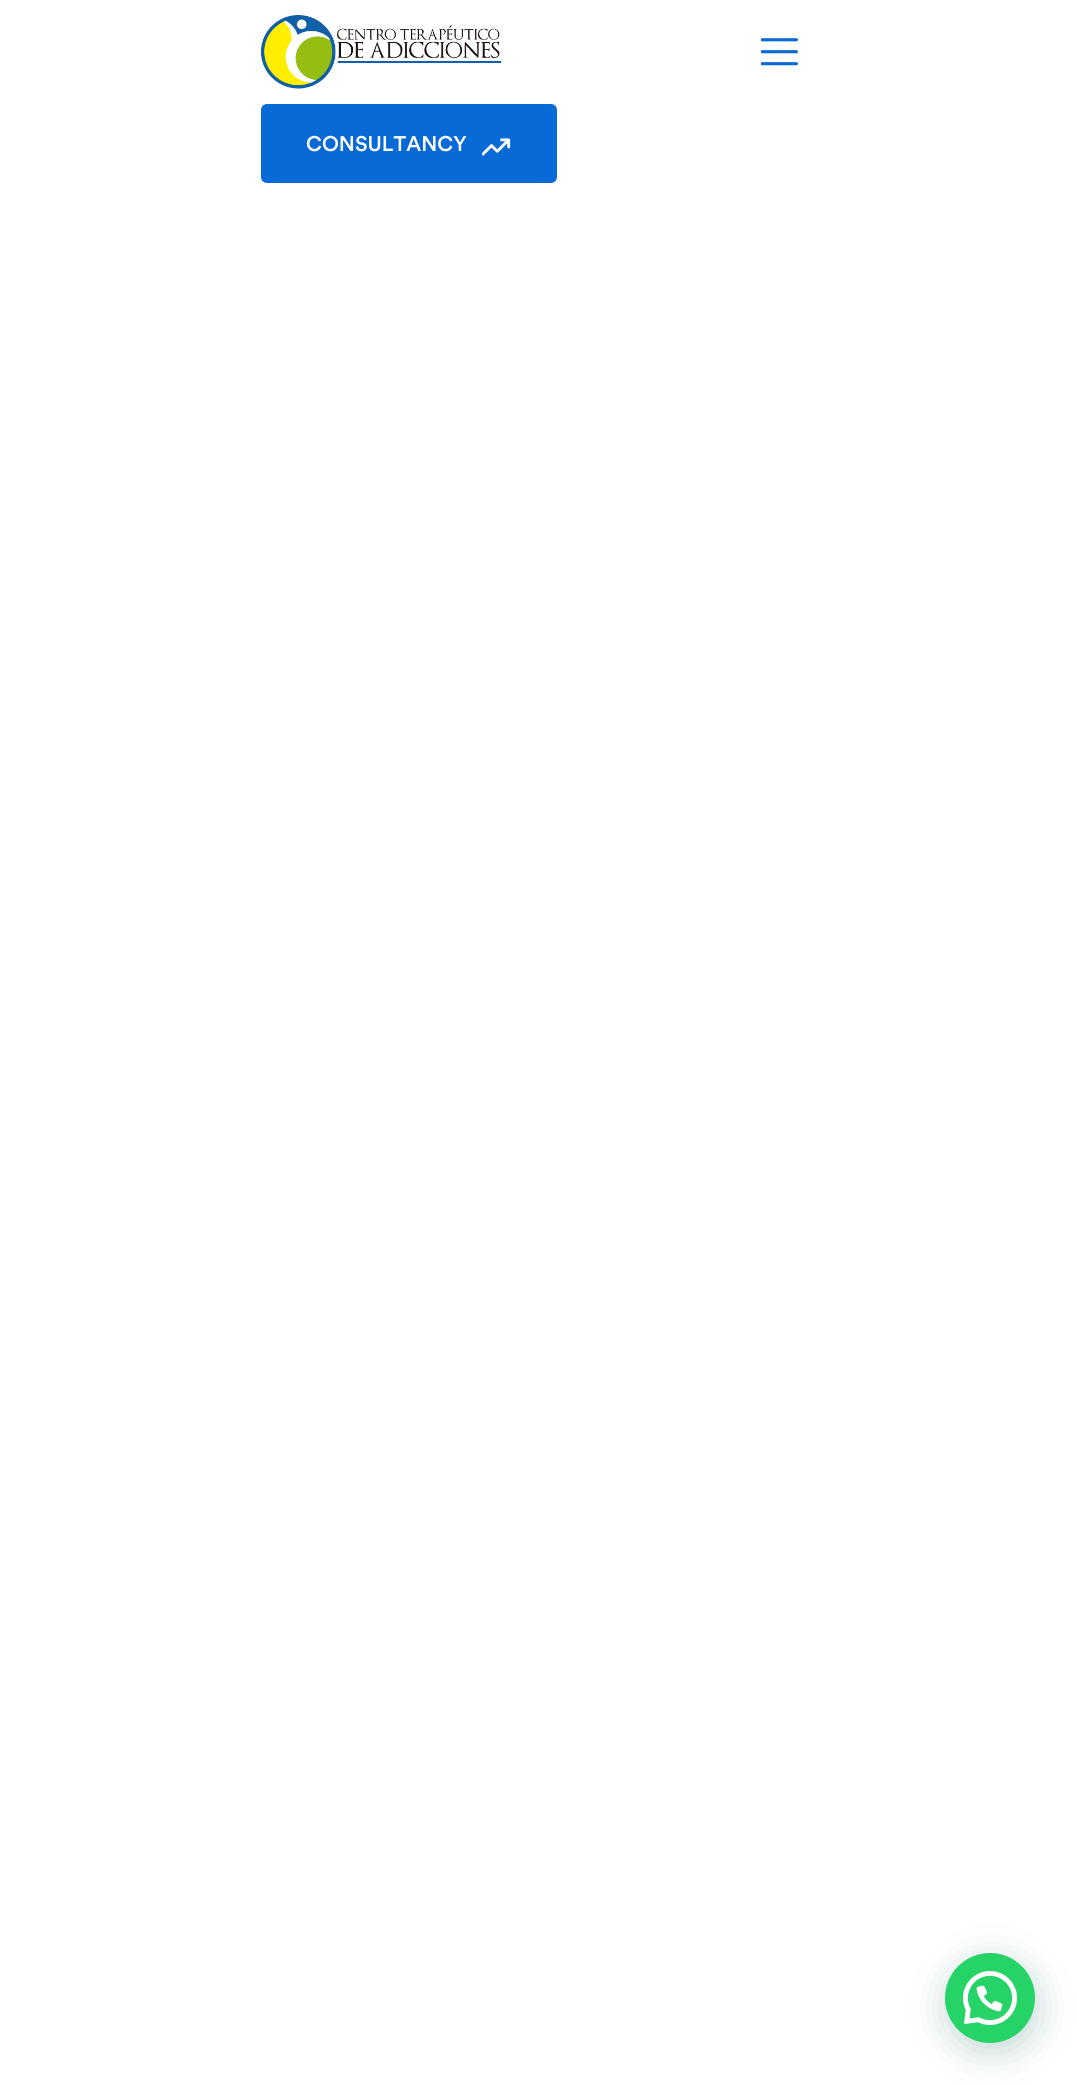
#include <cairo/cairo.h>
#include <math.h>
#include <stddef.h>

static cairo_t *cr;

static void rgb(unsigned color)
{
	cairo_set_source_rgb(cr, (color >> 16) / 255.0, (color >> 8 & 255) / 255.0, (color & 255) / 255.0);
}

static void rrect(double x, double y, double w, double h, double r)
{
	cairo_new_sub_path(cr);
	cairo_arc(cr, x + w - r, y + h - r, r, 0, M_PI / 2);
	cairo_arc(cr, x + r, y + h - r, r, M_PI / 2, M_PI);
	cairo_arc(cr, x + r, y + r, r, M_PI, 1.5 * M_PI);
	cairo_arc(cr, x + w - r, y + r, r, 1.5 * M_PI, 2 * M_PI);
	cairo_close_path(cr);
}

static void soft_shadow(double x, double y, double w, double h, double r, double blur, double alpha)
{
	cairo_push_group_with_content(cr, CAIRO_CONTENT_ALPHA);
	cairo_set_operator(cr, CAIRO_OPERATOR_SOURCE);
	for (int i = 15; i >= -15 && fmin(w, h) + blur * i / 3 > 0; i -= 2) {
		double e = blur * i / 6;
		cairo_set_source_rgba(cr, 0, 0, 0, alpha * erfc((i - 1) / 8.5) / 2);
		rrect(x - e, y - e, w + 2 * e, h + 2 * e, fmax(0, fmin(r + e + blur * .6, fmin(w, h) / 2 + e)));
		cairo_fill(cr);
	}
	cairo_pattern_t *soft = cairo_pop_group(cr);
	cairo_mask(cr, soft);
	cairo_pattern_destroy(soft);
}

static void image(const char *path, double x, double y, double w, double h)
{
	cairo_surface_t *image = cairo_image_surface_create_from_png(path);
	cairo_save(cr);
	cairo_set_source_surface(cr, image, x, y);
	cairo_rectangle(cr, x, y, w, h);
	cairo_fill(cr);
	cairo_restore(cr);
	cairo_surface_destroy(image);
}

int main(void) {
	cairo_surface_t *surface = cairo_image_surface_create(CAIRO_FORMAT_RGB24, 1077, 2085);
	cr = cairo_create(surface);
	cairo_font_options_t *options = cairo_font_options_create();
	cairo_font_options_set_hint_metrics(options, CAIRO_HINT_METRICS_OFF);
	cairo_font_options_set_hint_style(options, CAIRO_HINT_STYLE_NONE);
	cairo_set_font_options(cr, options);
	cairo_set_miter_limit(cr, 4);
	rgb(0xffffff);
	cairo_paint(cr);
	image("img/1.png", 261, 15, 240, 74);
	image("img/2.png", 761, 38, 37, 28);
	rgb(0x086ad7);
	rrect(261, 104, 296, 79, 6);
	cairo_fill(cr);
	image("img/3.png", 482, 138, 29, 18);
	rgb(0x075e54);
	soft_shadow(947, 1962, 90, 90, 45, 18, 0.24);
	rgb(0x25d366);
	cairo_arc(cr, 990, 1998, 45, 0, 2 * M_PI);
	cairo_fill(cr);
	image("img/4.png", 963, 1971, 54, 54);
	cairo_select_font_face(cr, "Circular Medium", CAIRO_FONT_SLANT_NORMAL, CAIRO_FONT_WEIGHT_NORMAL);
	cairo_set_font_size(cr, 21);
	rgb(0xffffff);
	cairo_move_to(cr, 306, 151);
	cairo_show_text(cr, "CONSULTANCY");
	cairo_surface_write_to_png(surface, "page.png");
	cairo_font_options_destroy(options);
	cairo_destroy(cr);
	cairo_surface_destroy(surface);
	return 0;
}
